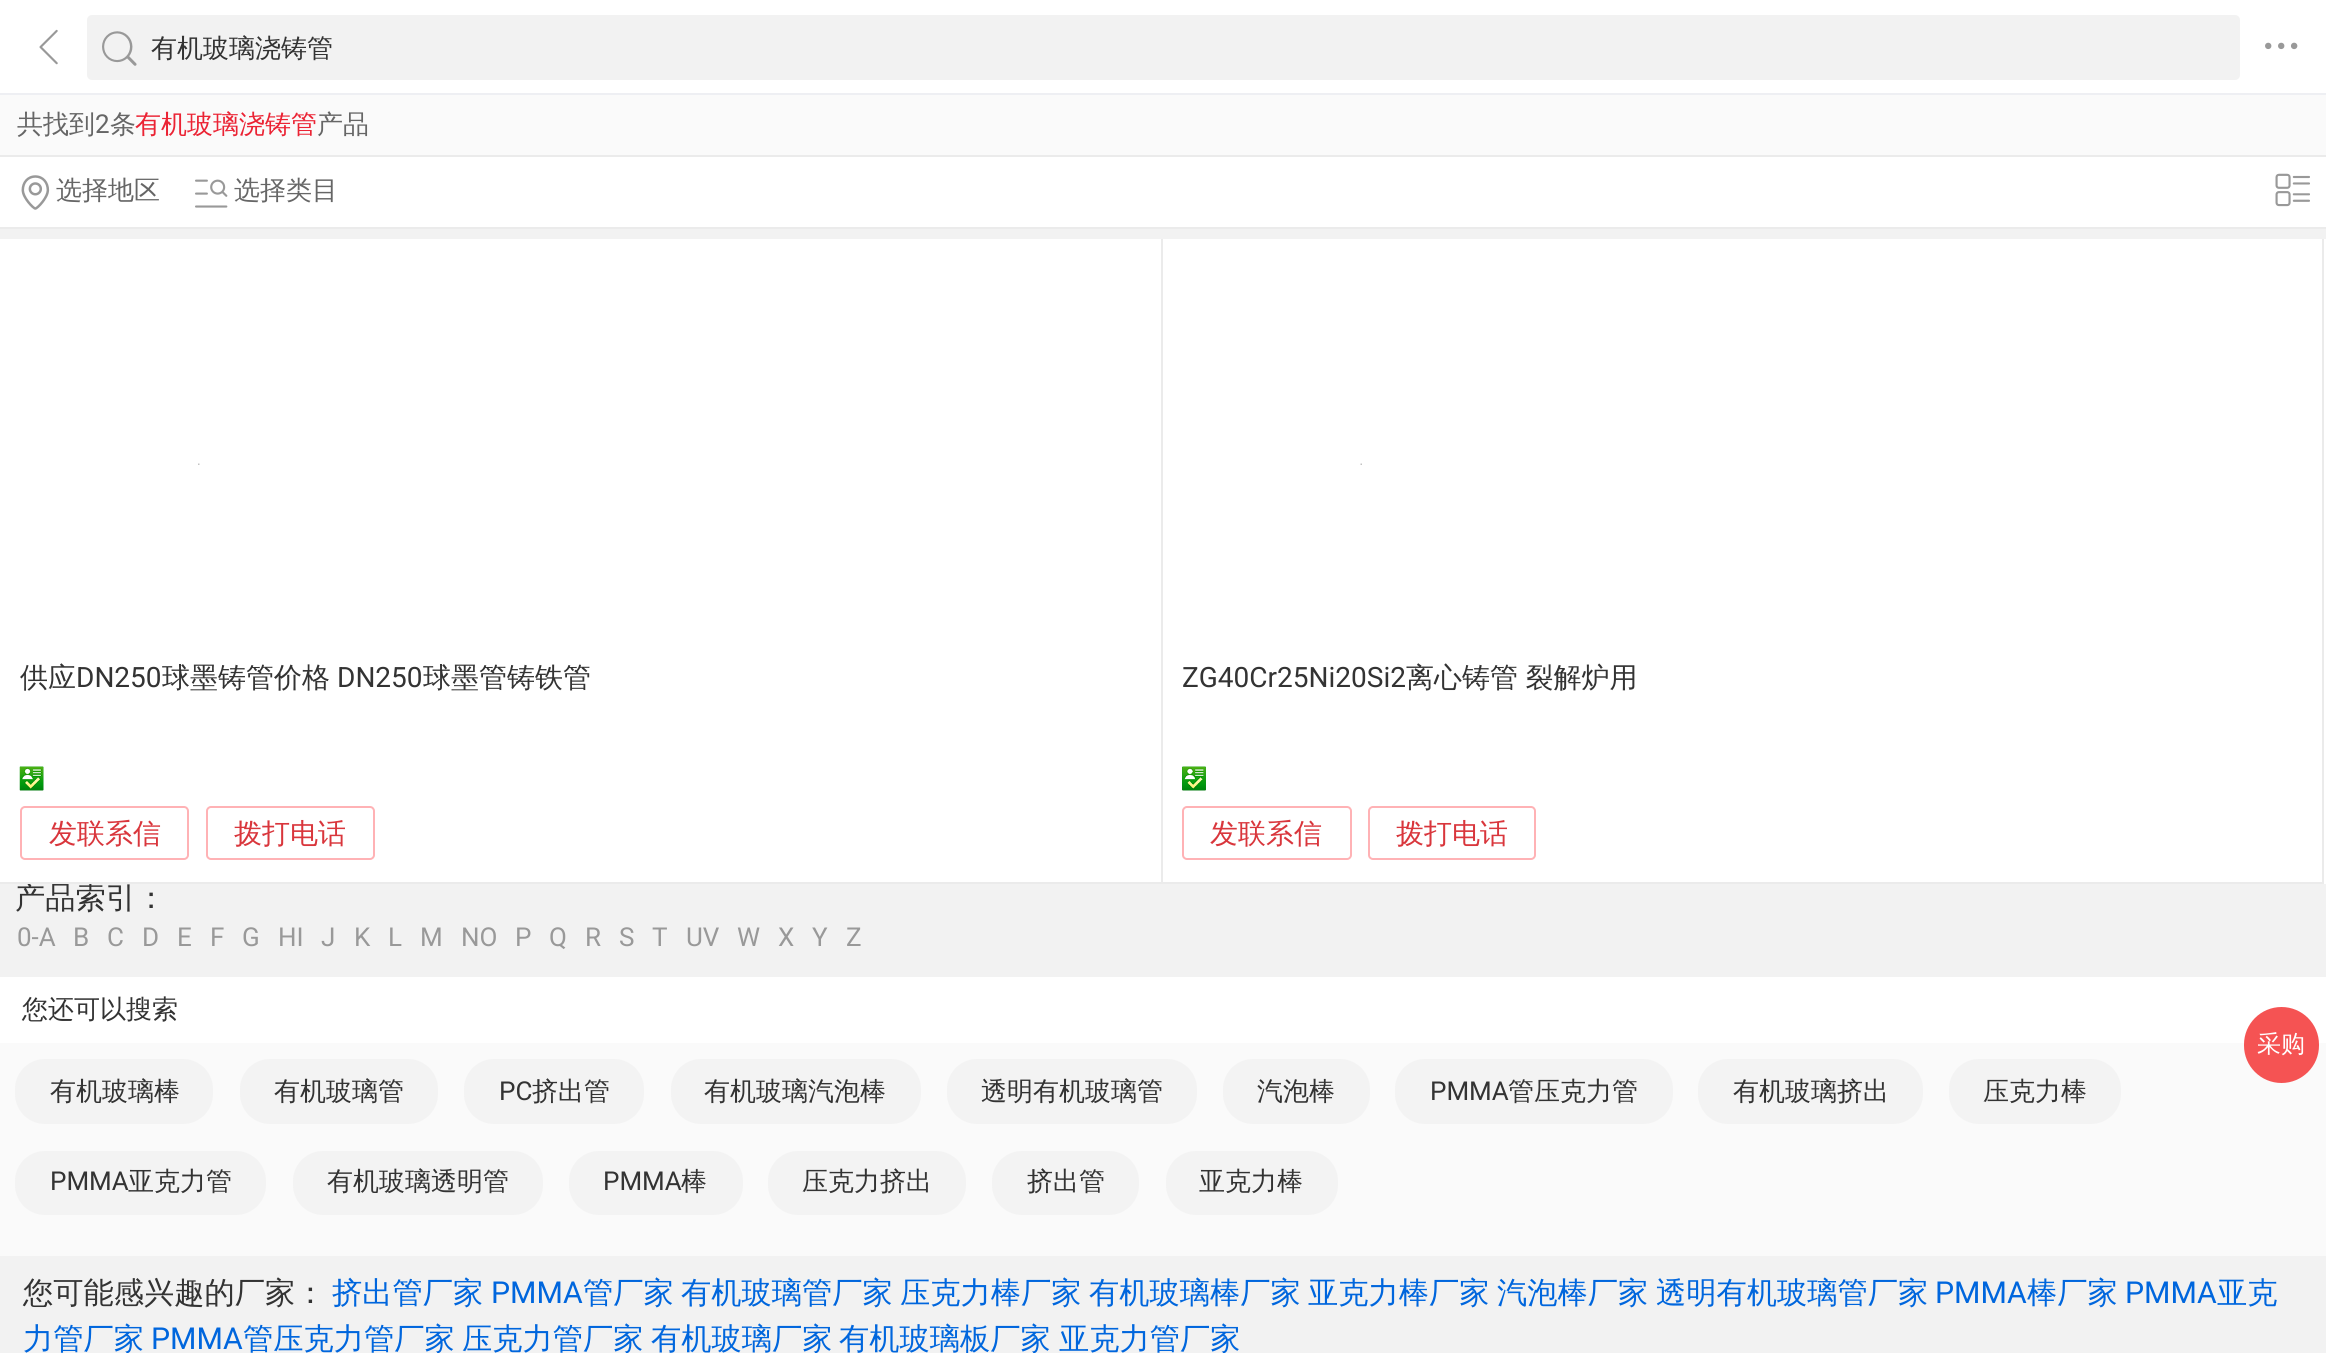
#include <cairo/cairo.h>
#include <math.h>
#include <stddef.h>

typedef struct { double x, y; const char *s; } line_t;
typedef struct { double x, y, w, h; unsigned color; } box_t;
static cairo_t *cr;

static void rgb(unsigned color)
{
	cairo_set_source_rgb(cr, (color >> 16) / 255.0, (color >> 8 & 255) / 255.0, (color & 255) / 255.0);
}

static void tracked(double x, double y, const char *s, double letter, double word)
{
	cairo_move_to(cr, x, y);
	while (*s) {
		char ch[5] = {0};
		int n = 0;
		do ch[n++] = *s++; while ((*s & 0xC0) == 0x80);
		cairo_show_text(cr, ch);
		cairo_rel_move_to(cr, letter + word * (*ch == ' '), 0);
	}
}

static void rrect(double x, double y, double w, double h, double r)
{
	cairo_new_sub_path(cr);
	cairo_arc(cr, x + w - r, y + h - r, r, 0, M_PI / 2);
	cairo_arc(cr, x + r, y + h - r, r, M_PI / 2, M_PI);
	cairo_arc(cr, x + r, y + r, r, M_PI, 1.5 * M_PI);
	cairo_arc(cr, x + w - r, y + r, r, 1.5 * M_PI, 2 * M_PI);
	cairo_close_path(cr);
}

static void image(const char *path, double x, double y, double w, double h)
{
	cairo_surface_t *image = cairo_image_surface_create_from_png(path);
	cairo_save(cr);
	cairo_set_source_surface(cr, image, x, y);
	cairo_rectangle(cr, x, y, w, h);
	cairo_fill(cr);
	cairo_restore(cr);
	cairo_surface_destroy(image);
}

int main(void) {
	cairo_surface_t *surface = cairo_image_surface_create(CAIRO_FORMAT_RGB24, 2326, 1353);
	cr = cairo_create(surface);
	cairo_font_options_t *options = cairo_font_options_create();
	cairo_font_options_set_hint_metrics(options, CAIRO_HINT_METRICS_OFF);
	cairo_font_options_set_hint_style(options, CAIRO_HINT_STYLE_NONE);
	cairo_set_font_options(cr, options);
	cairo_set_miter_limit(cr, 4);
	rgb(0xf2f2f2);
	cairo_paint(cr);
	rgb(0xffffff);
	cairo_rectangle(cr, 0, 0, 2326, 93);
	cairo_fill(cr);
	rgb(0xeeeff3);
	cairo_rectangle(cr, 0, 93, 2326, 2);
	cairo_fill(cr);
	image("img/1.png", 39, 29, 19, 36);
	rgb(0xf2f2f2);
	rrect(87, 15, 2153, 65, 5);
	cairo_fill(cr);
	image("img/2.png", 102, 31, 35, 35);
	image("img/3.png", 2265, 42, 33, 8);
	{
		static const box_t items[] = {
			{0, 95, 2326, 60, 0xfafafa},
			{0, 157, 2326, 70, 0xffffff},
			{0, 155, 2326, 2, 0xebebeb},
			{0, 227, 2326, 2, 0xebebeb},
		};
		for (size_t i = 0; i < sizeof items / sizeof *items; i++) {
			rgb(items[i].color);
			cairo_rectangle(cr, items[i].x, items[i].y, items[i].w, items[i].h);
			cairo_fill(cr);
		}
	}
	image("img/4.png", 21, 175, 29, 35);
	image("img/5.png", 195, 179, 33, 29);
	image("img/6.png", 2275, 173, 35, 34);
	rgb(0xffffff);
	cairo_rectangle(cr, 0, 977, 2326, 66);
	cairo_fill(cr);
	rgb(0xfafafa);
	cairo_rectangle(cr, 0, 1043, 2326, 213);
	cairo_fill(cr);
	rgb(0xf55353);
	rrect(2244, 1007, 75, 76, 37.5);
	cairo_fill(cr);
	rgb(0xf3f3f3);
	rrect(15, 1059, 198, 65, 30);
	cairo_fill(cr);
	rrect(240, 1059, 198, 65, 30);
	cairo_fill(cr);
	rrect(464, 1059, 180, 65, 30);
	cairo_fill(cr);
	rrect(671, 1059, 250, 65, 30);
	cairo_fill(cr);
	rrect(947, 1059, 250, 65, 30);
	cairo_fill(cr);
	rrect(1223, 1059, 147, 65, 30);
	cairo_fill(cr);
	rrect(1395, 1059, 278, 65, 30);
	cairo_fill(cr);
	rrect(1698, 1059, 225, 65, 30);
	cairo_fill(cr);
	rrect(1949, 1059, 172, 65, 30);
	cairo_fill(cr);
	rrect(15, 1151, 251, 64, 30);
	cairo_fill(cr);
	rrect(293, 1151, 250, 64, 30);
	cairo_fill(cr);
	rrect(569, 1151, 174, 64, 30);
	cairo_fill(cr);
	rrect(768, 1151, 198, 64, 30);
	cairo_fill(cr);
	rrect(992, 1151, 147, 64, 30);
	cairo_fill(cr);
	rrect(1166, 1151, 172, 64, 30);
	cairo_fill(cr);
	cairo_select_font_face(cr, "WenQuanYi Zen Hei Medium", CAIRO_FONT_SLANT_NORMAL, CAIRO_FONT_WEIGHT_NORMAL);
	cairo_set_font_size(cr, 26);
	rgb(0x333333);
	cairo_move_to(cr, 151, 57);
	cairo_show_text(cr, "有机玻璃浇铸管");
	rgb(0x666666);
	cairo_move_to(cr, 17, 133);
	cairo_show_text(cr, "共找到");
	cairo_select_font_face(cr, "Roboto", CAIRO_FONT_SLANT_NORMAL, CAIRO_FONT_WEIGHT_NORMAL);
	cairo_move_to(cr, 95, 133);
	cairo_show_text(cr, "2");
	cairo_select_font_face(cr, "WenQuanYi Zen Hei Medium", CAIRO_FONT_SLANT_NORMAL, CAIRO_FONT_WEIGHT_NORMAL);
	cairo_move_to(cr, 110, 133);
	cairo_show_text(cr, "条");
	rgb(0xeb2334);
	cairo_move_to(cr, 135, 133);
	cairo_show_text(cr, "有机玻璃浇铸管");
	rgb(0x666666);
	{
		static const line_t items[] = {
			{317, 133, "产品"},
			{56, 199, "选择地区"},
			{234, 199, "选择类目"},
		};
		for (size_t i = 0; i < sizeof items / sizeof *items; i++) {
			cairo_move_to(cr, items[i].x, items[i].y);
			cairo_show_text(cr, items[i].s);
		}
	}
	cairo_set_font_size(cr, 30.25);
	rgb(0x333333);
	cairo_move_to(cr, 15, 908);
	cairo_show_text(cr, "产品索引：");
	rgb(0xffffff);
	cairo_rectangle(cr, 0, 239, 2326, 645);
	cairo_fill(cr);
	image("img/10.png", 1182, 766, 24, 25);
	cairo_set_font_size(cr, 28);
	rgb(0x333333);
	tracked(1406, 687, "离心铸管 裂解炉用", 0, -1);
	cairo_select_font_face(cr, "Roboto", CAIRO_FONT_SLANT_NORMAL, CAIRO_FONT_WEIGHT_NORMAL);
	cairo_move_to(cr, 1182, 687);
	cairo_show_text(cr, "ZG40Cr25Ni20Si2");
	rrect(1369, 807, 166, 52, 4);
	rgb(0xffb2b5);
	cairo_stroke(cr);
	cairo_select_font_face(cr, "WenQuanYi Zen Hei Medium", CAIRO_FONT_SLANT_NORMAL, CAIRO_FONT_WEIGHT_NORMAL);
	rgb(0xd9363c);
	cairo_move_to(cr, 1396, 843);
	cairo_show_text(cr, "拨打电话");
	rrect(1183, 807, 168, 52, 4);
	rgb(0xffb2b5);
	cairo_stroke(cr);
	rgb(0xd9363c);
	cairo_move_to(cr, 1210, 843);
	cairo_show_text(cr, "发联系信");
	image("img/9.png", 1360, 463, 2, 2);
	image("img/8.png", 19, 766, 25, 25);
	rgb(0x333333);
	cairo_move_to(cr, 423, 687);
	cairo_show_text(cr, "球墨管铸铁管");
	cairo_select_font_face(cr, "Roboto", CAIRO_FONT_SLANT_NORMAL, CAIRO_FONT_WEIGHT_NORMAL);
	cairo_move_to(cr, 337, 687);
	cairo_show_text(cr, "DN250");
	cairo_select_font_face(cr, "WenQuanYi Zen Hei Medium", CAIRO_FONT_SLANT_NORMAL, CAIRO_FONT_WEIGHT_NORMAL);
	cairo_move_to(cr, 162, 687);
	cairo_show_text(cr, "球墨铸管价格");
	cairo_select_font_face(cr, "Roboto", CAIRO_FONT_SLANT_NORMAL, CAIRO_FONT_WEIGHT_NORMAL);
	cairo_move_to(cr, 76, 687);
	cairo_show_text(cr, "DN250");
	cairo_select_font_face(cr, "WenQuanYi Zen Hei Medium", CAIRO_FONT_SLANT_NORMAL, CAIRO_FONT_WEIGHT_NORMAL);
	cairo_move_to(cr, 20, 687);
	cairo_show_text(cr, "供应");
	rrect(207, 807, 167, 52, 4);
	rgb(0xffb2b5);
	cairo_stroke(cr);
	rgb(0xd9363c);
	cairo_move_to(cr, 234, 843);
	cairo_show_text(cr, "拨打电话");
	rrect(21, 807, 167, 52, 4);
	rgb(0xffb2b5);
	cairo_stroke(cr);
	rgb(0xd9363c);
	cairo_move_to(cr, 49, 843);
	cairo_show_text(cr, "发联系信");
	image("img/7.png", 198, 463, 2, 2);
	{
		static const box_t items[] = {
			{2322, 239, 2, 645, 0xebebeb},
			{1161, 239, 2, 645, 0xebebeb},
			{0, 882, 1163, 2, 0xebebeb},
			{1161, 882, 1163, 2, 0xebebeb},
		};
		for (size_t i = 0; i < sizeof items / sizeof *items; i++) {
			rgb(items[i].color);
			cairo_rectangle(cr, items[i].x, items[i].y, items[i].w, items[i].h);
			cairo_fill(cr);
		}
	}
	cairo_select_font_face(cr, "Roboto", CAIRO_FONT_SLANT_NORMAL, CAIRO_FONT_WEIGHT_NORMAL);
	cairo_set_font_size(cr, 26);
	rgb(0x999999);
	{
		static const line_t items[] = {
			{17, 946, "0-A"},
			{73, 946, "B"},
			{107, 946, "C"},
			{142, 946, "D"},
			{177, 946, "E"},
			{210, 946, "F"},
			{242, 946, "G"},
			{278, 946, "HI"},
			{321, 946, "J"},
			{354, 946, "K"},
			{388, 946, "L"},
			{420, 946, "M"},
			{461, 946, "NO"},
			{515, 946, "P"},
			{549, 946, "Q"},
			{585, 946, "R"},
			{619, 946, "S"},
			{652, 946, "T"},
			{686, 946, "UV"},
			{737, 946, "W"},
			{778, 946, "X"},
			{812, 946, "Y"},
			{846, 946, "Z"},
		};
		for (size_t i = 0; i < sizeof items / sizeof *items; i++) {
			cairo_move_to(cr, items[i].x, items[i].y);
			cairo_show_text(cr, items[i].s);
		}
	}
	cairo_select_font_face(cr, "WenQuanYi Zen Hei Medium", CAIRO_FONT_SLANT_NORMAL, CAIRO_FONT_WEIGHT_NORMAL);
	rgb(0x333333);
	cairo_move_to(cr, 22, 1018);
	cairo_show_text(cr, "您还可以搜索");
	cairo_set_font_size(cr, 24);
	rgb(0xffffff);
	cairo_move_to(cr, 2257, 1052);
	cairo_show_text(cr, "采购");
	cairo_set_font_size(cr, 26);
	rgb(0x333333);
	cairo_move_to(cr, 50, 1100);
	cairo_show_text(cr, "有机玻璃棒");
	cairo_move_to(cr, 274, 1100);
	cairo_show_text(cr, "有机玻璃管");
	cairo_select_font_face(cr, "Roboto", CAIRO_FONT_SLANT_NORMAL, CAIRO_FONT_WEIGHT_NORMAL);
	cairo_move_to(cr, 499, 1100);
	cairo_show_text(cr, "PC");
	cairo_select_font_face(cr, "WenQuanYi Zen Hei Medium", CAIRO_FONT_SLANT_NORMAL, CAIRO_FONT_WEIGHT_NORMAL);
	{
		static const line_t items[] = {
			{532, 1100, "挤出管"},
			{704, 1100, "有机玻璃汽泡棒"},
			{981, 1100, "透明有机玻璃管"},
			{1257, 1100, "汽泡棒"},
		};
		for (size_t i = 0; i < sizeof items / sizeof *items; i++) {
			cairo_move_to(cr, items[i].x, items[i].y);
			cairo_show_text(cr, items[i].s);
		}
	}
	cairo_select_font_face(cr, "Roboto", CAIRO_FONT_SLANT_NORMAL, CAIRO_FONT_WEIGHT_NORMAL);
	cairo_move_to(cr, 1430, 1100);
	cairo_show_text(cr, "PMMA");
	cairo_select_font_face(cr, "WenQuanYi Zen Hei Medium", CAIRO_FONT_SLANT_NORMAL, CAIRO_FONT_WEIGHT_NORMAL);
	{
		static const line_t items[] = {
			{1508, 1100, "管压克力管"},
			{1733, 1100, "有机玻璃挤出"},
			{1983, 1100, "压克力棒"},
		};
		for (size_t i = 0; i < sizeof items / sizeof *items; i++) {
			cairo_move_to(cr, items[i].x, items[i].y);
			cairo_show_text(cr, items[i].s);
		}
	}
	cairo_select_font_face(cr, "Roboto", CAIRO_FONT_SLANT_NORMAL, CAIRO_FONT_WEIGHT_NORMAL);
	cairo_move_to(cr, 50, 1190);
	cairo_show_text(cr, "PMMA");
	cairo_select_font_face(cr, "WenQuanYi Zen Hei Medium", CAIRO_FONT_SLANT_NORMAL, CAIRO_FONT_WEIGHT_NORMAL);
	cairo_move_to(cr, 128, 1190);
	cairo_show_text(cr, "亚克力管");
	cairo_move_to(cr, 327, 1190);
	cairo_show_text(cr, "有机玻璃透明管");
	cairo_select_font_face(cr, "Roboto", CAIRO_FONT_SLANT_NORMAL, CAIRO_FONT_WEIGHT_NORMAL);
	cairo_move_to(cr, 603, 1190);
	cairo_show_text(cr, "PMMA");
	cairo_select_font_face(cr, "WenQuanYi Zen Hei Medium", CAIRO_FONT_SLANT_NORMAL, CAIRO_FONT_WEIGHT_NORMAL);
	{
		static const line_t items[] = {
			{681, 1190, "棒"},
			{802, 1190, "压克力挤出"},
			{1027, 1190, "挤出管"},
			{1199, 1190, "亚克力棒"},
		};
		for (size_t i = 0; i < sizeof items / sizeof *items; i++) {
			cairo_move_to(cr, items[i].x, items[i].y);
			cairo_show_text(cr, items[i].s);
		}
	}
	cairo_set_font_size(cr, 30.25);
	cairo_move_to(cr, 23, 1303);
	cairo_show_text(cr, "您可能感兴趣的厂家：");
	rgb(0x0066dd);
	cairo_move_to(cr, 332, 1303);
	cairo_show_text(cr, "挤出管厂家");
	cairo_select_font_face(cr, "Roboto", CAIRO_FONT_SLANT_NORMAL, CAIRO_FONT_WEIGHT_NORMAL);
	cairo_move_to(cr, 491, 1303);
	cairo_show_text(cr, "PMMA");
	cairo_select_font_face(cr, "WenQuanYi Zen Hei Medium", CAIRO_FONT_SLANT_NORMAL, CAIRO_FONT_WEIGHT_NORMAL);
	{
		static const line_t items[] = {
			{583, 1303, "管厂家"},
			{681, 1303, "有机玻璃管厂家"},
			{900, 1303, "压克力棒厂家"},
			{1089, 1303, "有机玻璃棒厂家"},
			{1308, 1303, "亚克力棒厂家"},
			{1497, 1303, "汽泡棒厂家"},
			{1656, 1303, "透明有机玻璃管厂家"},
		};
		for (size_t i = 0; i < sizeof items / sizeof *items; i++) {
			cairo_move_to(cr, items[i].x, items[i].y);
			cairo_show_text(cr, items[i].s);
		}
	}
	cairo_select_font_face(cr, "Roboto", CAIRO_FONT_SLANT_NORMAL, CAIRO_FONT_WEIGHT_NORMAL);
	cairo_move_to(cr, 1935, 1303);
	cairo_show_text(cr, "PMMA");
	cairo_select_font_face(cr, "WenQuanYi Zen Hei Medium", CAIRO_FONT_SLANT_NORMAL, CAIRO_FONT_WEIGHT_NORMAL);
	cairo_move_to(cr, 2027, 1303);
	cairo_show_text(cr, "棒厂家");
	cairo_select_font_face(cr, "Roboto", CAIRO_FONT_SLANT_NORMAL, CAIRO_FONT_WEIGHT_NORMAL);
	cairo_move_to(cr, 2125, 1303);
	cairo_show_text(cr, "PMMA");
	cairo_select_font_face(cr, "WenQuanYi Zen Hei Medium", CAIRO_FONT_SLANT_NORMAL, CAIRO_FONT_WEIGHT_NORMAL);
	cairo_move_to(cr, 2217, 1303);
	cairo_show_text(cr, "亚克");
	cairo_move_to(cr, 23, 1349);
	cairo_show_text(cr, "力管厂家");
	cairo_select_font_face(cr, "Roboto", CAIRO_FONT_SLANT_NORMAL, CAIRO_FONT_WEIGHT_NORMAL);
	cairo_move_to(cr, 151, 1349);
	cairo_show_text(cr, "PMMA");
	cairo_select_font_face(cr, "WenQuanYi Zen Hei Medium", CAIRO_FONT_SLANT_NORMAL, CAIRO_FONT_WEIGHT_NORMAL);
	{
		static const line_t items[] = {
			{243, 1349, "管压克力管厂家"},
			{462, 1349, "压克力管厂家"},
			{651, 1349, "有机玻璃厂家"},
			{839, 1349, "有机玻璃板厂家"},
			{1059, 1349, "亚克力管厂家"},
		};
		for (size_t i = 0; i < sizeof items / sizeof *items; i++) {
			cairo_move_to(cr, items[i].x, items[i].y);
			cairo_show_text(cr, items[i].s);
		}
	}
	cairo_surface_write_to_png(surface, "page.png");
	cairo_font_options_destroy(options);
	cairo_destroy(cr);
	cairo_surface_destroy(surface);
	return 0;
}
